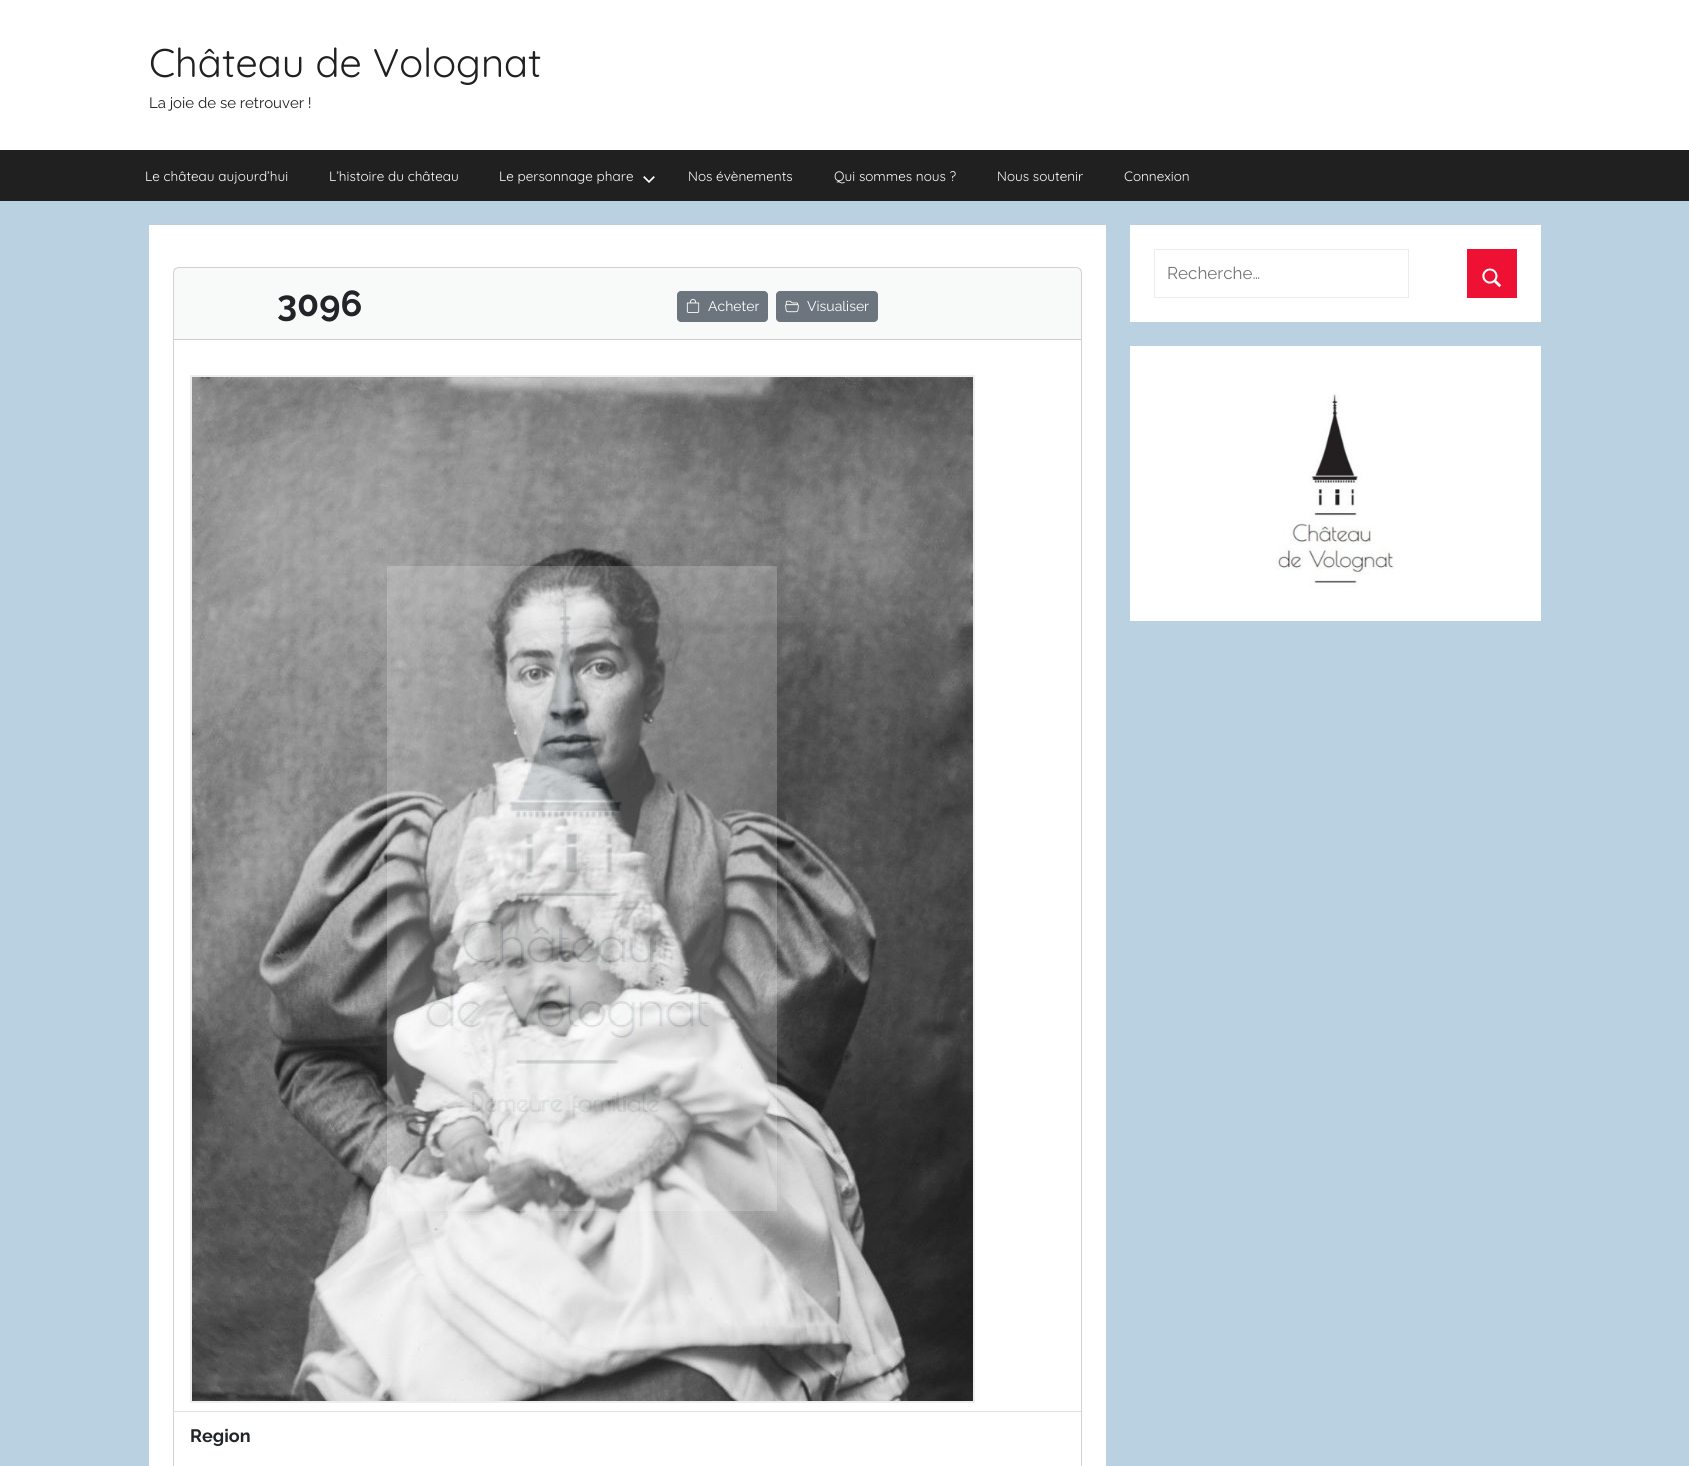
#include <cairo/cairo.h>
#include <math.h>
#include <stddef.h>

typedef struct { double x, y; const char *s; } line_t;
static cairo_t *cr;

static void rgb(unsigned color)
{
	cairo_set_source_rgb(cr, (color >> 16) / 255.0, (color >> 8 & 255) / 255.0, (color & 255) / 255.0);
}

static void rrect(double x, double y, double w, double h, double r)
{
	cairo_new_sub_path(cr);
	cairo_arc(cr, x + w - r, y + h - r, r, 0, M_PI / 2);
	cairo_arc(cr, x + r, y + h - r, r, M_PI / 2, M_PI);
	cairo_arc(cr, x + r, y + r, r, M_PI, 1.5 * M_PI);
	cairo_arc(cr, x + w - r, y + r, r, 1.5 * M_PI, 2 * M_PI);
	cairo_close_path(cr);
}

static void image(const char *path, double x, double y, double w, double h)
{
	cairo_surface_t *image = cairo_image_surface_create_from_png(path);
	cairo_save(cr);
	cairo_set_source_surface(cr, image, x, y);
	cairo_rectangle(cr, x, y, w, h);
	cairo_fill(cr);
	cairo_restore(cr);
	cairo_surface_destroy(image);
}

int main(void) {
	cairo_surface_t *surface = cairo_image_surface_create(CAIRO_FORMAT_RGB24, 1689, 1466);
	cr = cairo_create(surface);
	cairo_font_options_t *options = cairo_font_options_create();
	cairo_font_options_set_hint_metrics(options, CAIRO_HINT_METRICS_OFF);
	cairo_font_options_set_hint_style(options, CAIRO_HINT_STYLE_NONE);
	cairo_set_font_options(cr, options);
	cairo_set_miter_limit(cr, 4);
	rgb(0xbad1e2);
	cairo_paint(cr);
	rgb(0xffffff);
	cairo_rectangle(cr, 0, 0, 1689, 150);
	cairo_fill(cr);
	rgb(0x202020);
	cairo_rectangle(cr, 0, 150, 1689, 51);
	cairo_fill(cr);
	image("img/1.png", 643, 176, 12, 7);
	rgb(0xffffff);
	cairo_rectangle(cr, 1130, 225, 411, 97);
	cairo_fill(cr);
	cairo_rectangle(cr, 1154.5, 249.5, 254, 48);
	rgb(0xececec);
	cairo_set_line_width(cr, 1);
	cairo_stroke(cr);
	rgb(0xee1133);
	cairo_rectangle(cr, 1467, 249, 50, 49);
	cairo_fill(cr);
	image("img/2.png", 1482, 268, 20, 20);
	rgb(0xffffff);
	cairo_rectangle(cr, 1130, 346, 411, 275);
	cairo_fill(cr);
	image("img/3.png", 1276, 391, 119, 197);
	cairo_rectangle(cr, 149, 225, 957, 1241);
	cairo_fill(cr);
	rrect(173.5, 267.5, 908, 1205, 5.5);
	rgb(0xd2d2d2);
	cairo_stroke(cr);
	cairo_set_source_rgba(cr, 0.129, 0.145, 0.161, 0.03);
	cairo_rectangle(cr, 174, 268, 907, 71);
	cairo_fill(cr);
	rgb(0xcdcdcd);
	cairo_rectangle(cr, 174, 339, 907, 1);
	cairo_fill(cr);
	rgb(0x6c757d);
	rrect(677.5, 291.5, 90, 30, 3.5);
	cairo_fill_preserve(cr);
	cairo_stroke(cr);
	image("img/4.png", 686, 299, 14, 14);
	rrect(776.5, 291.5, 101, 30, 3.5);
	cairo_fill_preserve(cr);
	cairo_stroke(cr);
	image("img/5.png", 785, 300, 14, 13);
	rgb(0xdee2e6);
	cairo_rectangle(cr, 174, 1411, 907, 1);
	cairo_fill(cr);
	cairo_rectangle(cr, 191, 376, 783, 1026);
	rgb(0xeeeeee);
	cairo_set_line_width(cr, 2);
	cairo_stroke(cr);
	image("img/6.png", 192, 377, 781, 1024);
	cairo_select_font_face(cr, "Quicksand Light", CAIRO_FONT_SLANT_NORMAL, CAIRO_FONT_WEIGHT_NORMAL);
	cairo_set_font_size(cr, 40);
	rgb(0x202020);
	cairo_move_to(cr, 149, 77);
	cairo_show_text(cr, "Château de Volognat");
	cairo_select_font_face(cr, "Raleway Thin", CAIRO_FONT_SLANT_NORMAL, CAIRO_FONT_WEIGHT_NORMAL);
	cairo_set_font_size(cr, 15);
	cairo_move_to(cr, 149, 108);
	cairo_show_text(cr, "La joie de se retrouver !");
	cairo_select_font_face(cr, "Quicksand Light", CAIRO_FONT_SLANT_NORMAL, CAIRO_FONT_WEIGHT_NORMAL);
	cairo_set_font_size(cr, 13.6);
	rgb(0xffffff);
	{
		static const line_t items[] = {
			{145, 181, "Le château aujourd’hui"},
			{329, 181, "L’histoire du château"},
			{499, 181, "Le personnage phare"},
			{688, 181, "Nos évènements"},
			{834, 181, "Qui sommes nous ?"},
			{997, 181, "Nous soutenir"},
			{1124, 181, "Connexion"},
		};
		for (size_t i = 0; i < sizeof items / sizeof *items; i++) {
			cairo_move_to(cr, items[i].x, items[i].y);
			cairo_show_text(cr, items[i].s);
		}
	}
	cairo_select_font_face(cr, "Raleway Thin", CAIRO_FONT_SLANT_NORMAL, CAIRO_FONT_WEIGHT_NORMAL);
	cairo_set_font_size(cr, 17);
	rgb(0x757575);
	cairo_move_to(cr, 1167, 279);
	cairo_show_text(cr, "Recherche…");
	cairo_select_font_face(cr, "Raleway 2 Thin", CAIRO_FONT_SLANT_NORMAL, CAIRO_FONT_WEIGHT_NORMAL);
	cairo_set_font_size(cr, 36);
	rgb(0x212529);
	cairo_move_to(cr, 277, 316);
	cairo_show_text(cr, "3096");
	cairo_select_font_face(cr, "Raleway Thin", CAIRO_FONT_SLANT_NORMAL, CAIRO_FONT_WEIGHT_NORMAL);
	cairo_set_font_size(cr, 14);
	rgb(0xffffff);
	cairo_move_to(cr, 708, 311);
	cairo_show_text(cr, "Acheter");
	cairo_move_to(cr, 807, 311);
	cairo_show_text(cr, "Visualiser");
	cairo_select_font_face(cr, "Raleway 2 Thin", CAIRO_FONT_SLANT_NORMAL, CAIRO_FONT_WEIGHT_NORMAL);
	cairo_set_font_size(cr, 18);
	rgb(0x212529);
	cairo_move_to(cr, 190, 1442);
	cairo_show_text(cr, "Region");
	cairo_surface_write_to_png(surface, "page.png");
	cairo_font_options_destroy(options);
	cairo_destroy(cr);
	cairo_surface_destroy(surface);
	return 0;
}
